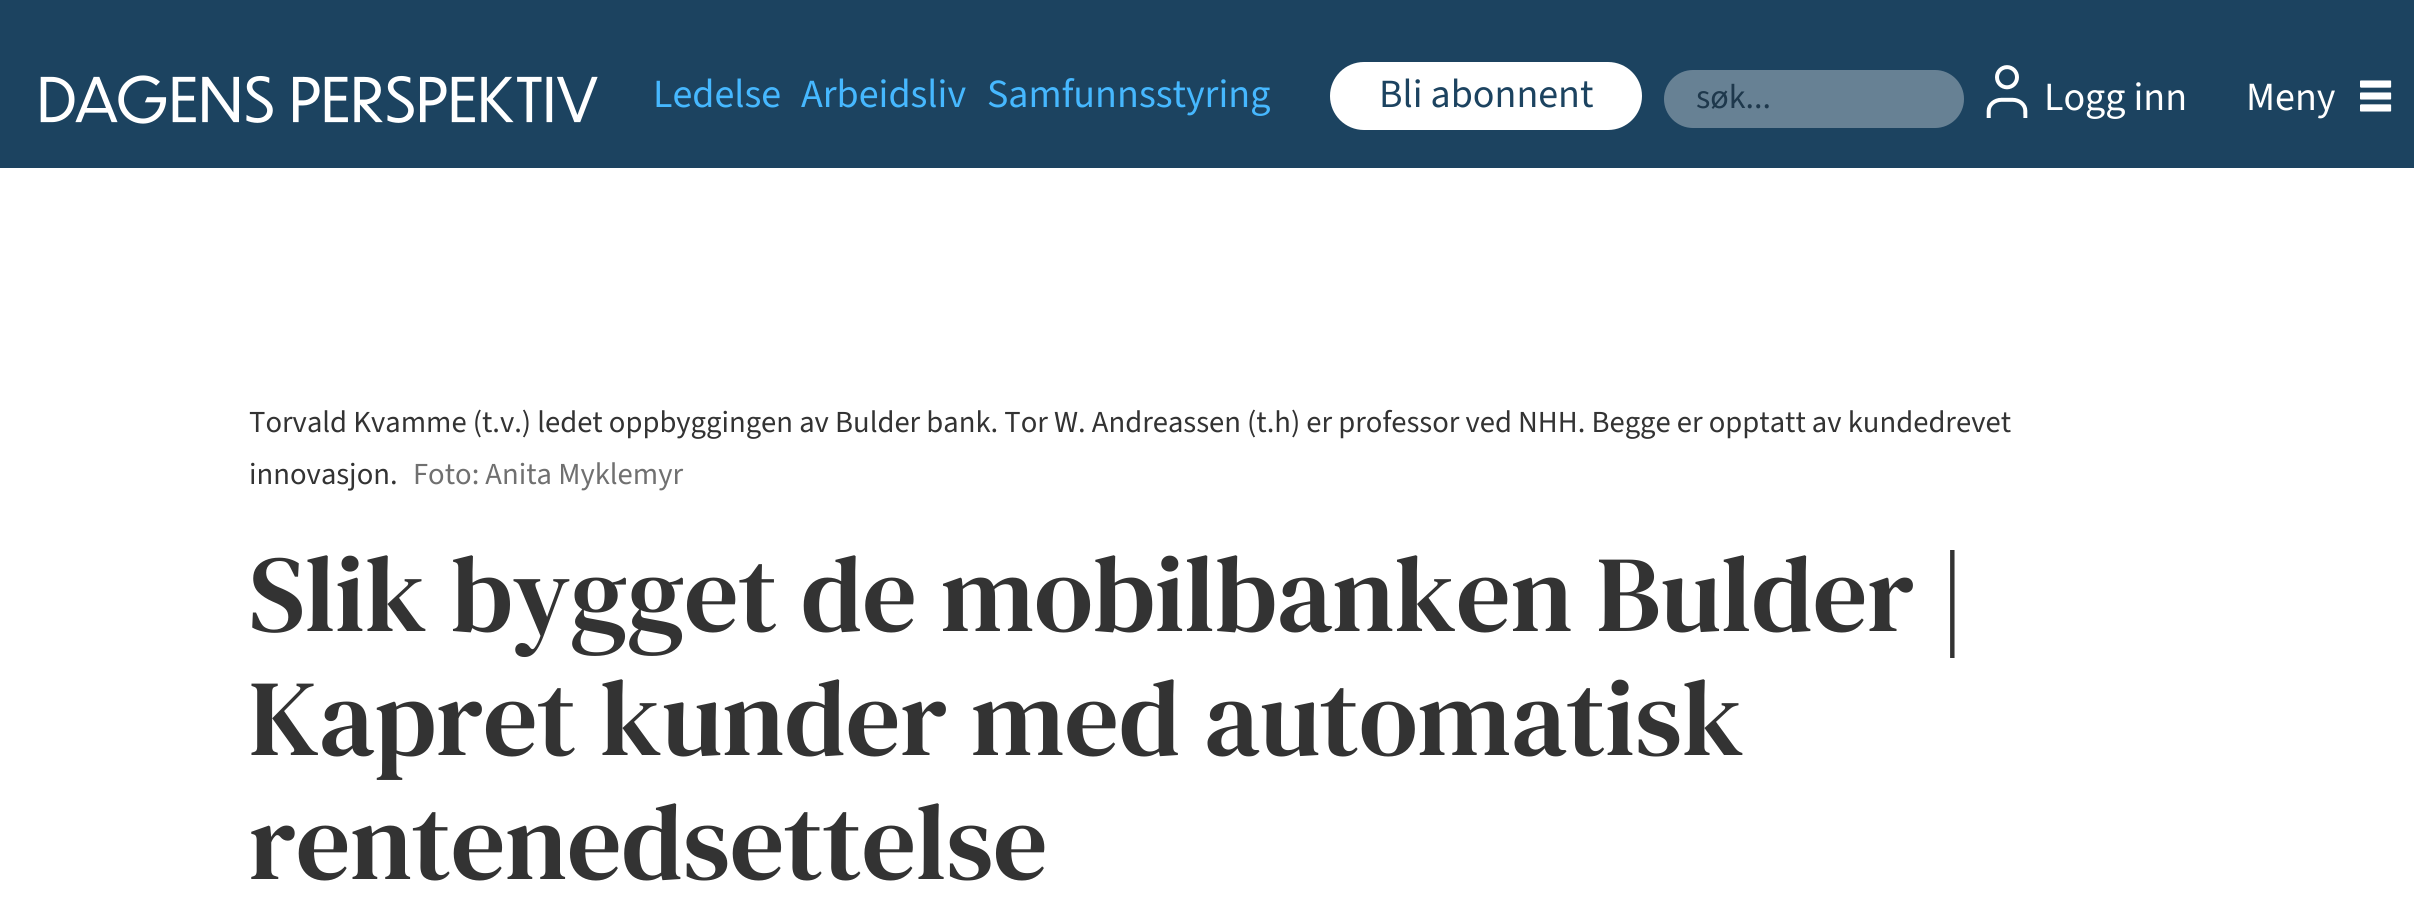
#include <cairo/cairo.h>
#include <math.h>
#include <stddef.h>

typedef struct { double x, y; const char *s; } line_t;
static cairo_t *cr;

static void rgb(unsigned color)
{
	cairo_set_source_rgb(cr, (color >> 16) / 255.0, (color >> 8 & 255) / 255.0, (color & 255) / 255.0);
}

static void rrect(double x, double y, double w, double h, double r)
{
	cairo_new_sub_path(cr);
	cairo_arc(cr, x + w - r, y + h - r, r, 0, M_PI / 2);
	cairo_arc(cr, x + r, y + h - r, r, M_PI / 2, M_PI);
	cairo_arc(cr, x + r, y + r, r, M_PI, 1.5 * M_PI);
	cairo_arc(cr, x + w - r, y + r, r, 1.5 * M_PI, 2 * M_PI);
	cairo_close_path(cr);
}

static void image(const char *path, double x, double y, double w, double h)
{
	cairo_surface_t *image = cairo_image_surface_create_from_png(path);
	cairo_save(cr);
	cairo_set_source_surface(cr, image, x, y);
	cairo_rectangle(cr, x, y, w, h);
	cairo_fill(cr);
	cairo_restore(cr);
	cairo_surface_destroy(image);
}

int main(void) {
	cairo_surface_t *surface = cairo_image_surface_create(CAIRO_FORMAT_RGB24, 2414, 902);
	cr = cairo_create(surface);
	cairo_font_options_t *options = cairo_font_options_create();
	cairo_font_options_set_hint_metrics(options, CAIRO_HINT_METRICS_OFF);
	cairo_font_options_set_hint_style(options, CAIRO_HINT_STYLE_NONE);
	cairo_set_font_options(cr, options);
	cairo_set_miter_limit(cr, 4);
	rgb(0xffffff);
	cairo_paint(cr);
	rgb(0x1c4360);
	cairo_rectangle(cr, 0, 0, 2414, 168);
	cairo_fill(cr);
	image("img/1.png", 40, 75, 558, 49);
	rgb(0xffffff);
	rrect(1330, 62, 312, 68, 34);
	cairo_fill(cr);
	rgb(0x678194);
	rrect(1664, 70, 300, 58, 29);
	cairo_fill(cr);
	image("img/2.png", 1986, 65, 42, 53);
	image("img/3.png", 2360, 80, 32, 32);
	cairo_select_font_face(cr, "Source Sans 3", CAIRO_FONT_SLANT_NORMAL, CAIRO_FONT_WEIGHT_NORMAL);
	cairo_set_font_size(cr, 40);
	rgb(0x46b8ff);
	{
		static const line_t items[] = {
			{653, 107, "Ledelse"},
			{801, 107, "Arbeidsliv"},
			{987, 107, "Samfunnsstyring"},
		};
		for (size_t i = 0; i < sizeof items / sizeof *items; i++) {
			cairo_move_to(cr, items[i].x, items[i].y);
			cairo_show_text(cr, items[i].s);
		}
	}
	rgb(0x1c4360);
	cairo_move_to(cr, 1379, 107);
	cairo_show_text(cr, "Bli abonnent");
	cairo_set_font_size(cr, 34);
	rgb(0x1e384c);
	cairo_move_to(cr, 1696, 108);
	cairo_show_text(cr, "søk...");
	cairo_set_font_size(cr, 40);
	rgb(0xffffff);
	cairo_move_to(cr, 2044, 110);
	cairo_show_text(cr, "Logg inn");
	cairo_move_to(cr, 2246, 110);
	cairo_show_text(cr, "Meny");
	cairo_set_font_size(cr, 30.6);
	rgb(0x333333);
	cairo_move_to(cr, 249, 432);
	cairo_show_text(cr, "Torvald Kvamme (t.v.) ledet oppbyggingen av Bulder bank. Tor W. Andreassen (t.h) er professor ved NHH. Begge er opptatt av kundedrevet");
	cairo_move_to(cr, 249, 484);
	cairo_show_text(cr, "innovasjon.");
	rgb(0x707070);
	cairo_move_to(cr, 413, 484);
	cairo_show_text(cr, "Foto: Anita Myklemyr");
	cairo_select_font_face(cr, "DM Serif Text", CAIRO_FONT_SLANT_NORMAL, CAIRO_FONT_WEIGHT_NORMAL);
	cairo_set_font_size(cr, 108);
	rgb(0x333333);
	{
		static const line_t items[] = {
			{249, 631, "Slik bygget de mobilbanken Bulder |"},
			{249, 755, "Kapret kunder med automatisk"},
			{249, 879, "rentenedsettelse"},
		};
		for (size_t i = 0; i < sizeof items / sizeof *items; i++) {
			cairo_move_to(cr, items[i].x, items[i].y);
			cairo_show_text(cr, items[i].s);
		}
	}
	cairo_surface_write_to_png(surface, "page.png");
	cairo_font_options_destroy(options);
	cairo_destroy(cr);
	cairo_surface_destroy(surface);
	return 0;
}
